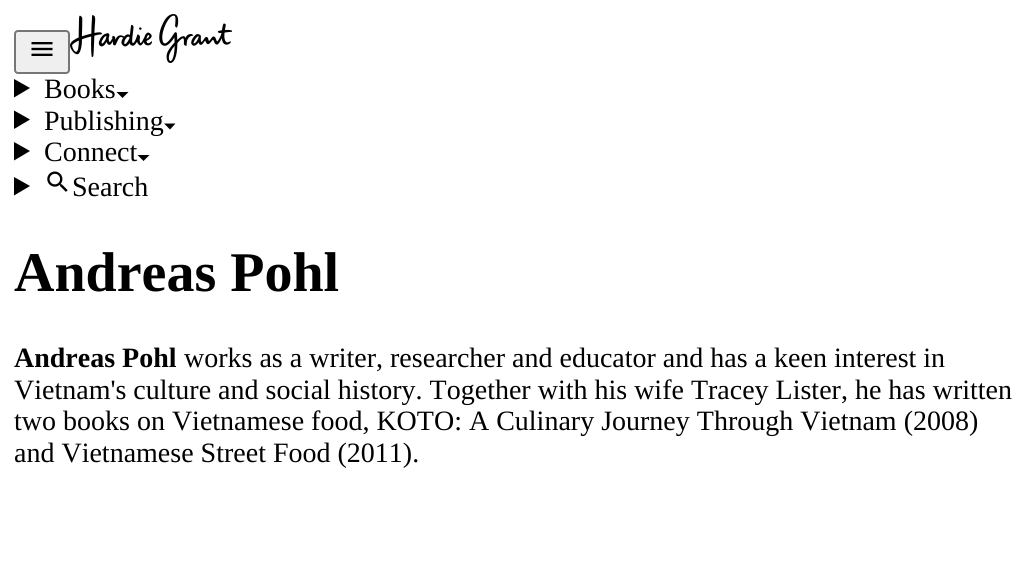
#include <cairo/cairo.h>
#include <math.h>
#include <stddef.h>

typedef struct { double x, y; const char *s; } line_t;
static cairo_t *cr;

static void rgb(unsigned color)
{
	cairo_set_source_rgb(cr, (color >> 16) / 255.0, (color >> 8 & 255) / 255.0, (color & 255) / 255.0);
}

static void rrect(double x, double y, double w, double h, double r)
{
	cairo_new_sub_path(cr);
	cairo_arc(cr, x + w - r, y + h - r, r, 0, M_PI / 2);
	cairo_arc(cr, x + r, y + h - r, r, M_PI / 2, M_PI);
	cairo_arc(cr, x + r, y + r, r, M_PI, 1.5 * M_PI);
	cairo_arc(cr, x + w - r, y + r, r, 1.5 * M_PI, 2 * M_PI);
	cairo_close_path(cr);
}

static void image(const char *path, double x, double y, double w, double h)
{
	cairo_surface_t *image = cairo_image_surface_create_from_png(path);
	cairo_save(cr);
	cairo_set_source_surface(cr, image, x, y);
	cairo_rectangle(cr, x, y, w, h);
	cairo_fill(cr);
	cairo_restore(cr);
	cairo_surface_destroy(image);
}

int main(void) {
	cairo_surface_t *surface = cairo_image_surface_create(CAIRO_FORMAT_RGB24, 1027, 574);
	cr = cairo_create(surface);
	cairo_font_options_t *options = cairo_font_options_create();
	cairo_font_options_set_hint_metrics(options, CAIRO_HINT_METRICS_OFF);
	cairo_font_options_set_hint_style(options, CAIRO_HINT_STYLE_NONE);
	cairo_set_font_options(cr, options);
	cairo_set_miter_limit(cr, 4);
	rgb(0xffffff);
	cairo_paint(cr);
	rgb(0xefefef);
	rrect(15, 31, 54, 42, 3);
	cairo_fill_preserve(cr);
	rgb(0x767676);
	cairo_stroke(cr);
	image("img/1.png", 31, 42, 22, 14);
	image("img/2.png", 70, 14, 162, 49);
	rgb(0x000000);
	cairo_new_path(cr);
	cairo_move_to(cr, 14, 79);
	cairo_line_to(cr, 30, 88);
	cairo_line_to(cr, 14, 97.5);
	cairo_close_path(cr);
	cairo_fill(cr);
	cairo_new_path(cr);
	cairo_move_to(cr, 116.5, 92);
	cairo_line_to(cr, 122.5, 98);
	cairo_line_to(cr, 128.5, 92);
	cairo_close_path(cr);
	cairo_move_to(cr, 164, 123.5);
	cairo_line_to(cr, 170, 129.5);
	cairo_line_to(cr, 175.5, 123.5);
	cairo_close_path(cr);
	cairo_fill(cr);
	cairo_new_path(cr);
	cairo_move_to(cr, 14, 110.5);
	cairo_line_to(cr, 30, 119.5);
	cairo_line_to(cr, 14, 129);
	cairo_close_path(cr);
	cairo_fill(cr);
	cairo_new_path(cr);
	cairo_move_to(cr, 14, 142);
	cairo_line_to(cr, 30, 151);
	cairo_line_to(cr, 14, 160.5);
	cairo_close_path(cr);
	cairo_fill(cr);
	cairo_new_path(cr);
	cairo_move_to(cr, 137.5, 155);
	cairo_line_to(cr, 143.5, 161);
	cairo_line_to(cr, 149.5, 155);
	cairo_close_path(cr);
	cairo_fill(cr);
	cairo_new_path(cr);
	cairo_move_to(cr, 14, 177);
	cairo_line_to(cr, 30, 186);
	cairo_line_to(cr, 14, 195.5);
	cairo_close_path(cr);
	cairo_fill(cr);
	image("img/3.png", 47, 171, 21, 21);
	cairo_select_font_face(cr, "Liberation Serif", CAIRO_FONT_SLANT_NORMAL, CAIRO_FONT_WEIGHT_NORMAL);
	cairo_set_font_size(cr, 28);
	{
		static const line_t items[] = {
			{44, 98, "Books"},
			{44, 130, "Publishing"},
			{44, 161, "Connect"},
			{72, 196, "Search"},
		};
		for (size_t i = 0; i < sizeof items / sizeof *items; i++) {
			cairo_move_to(cr, items[i].x, items[i].y);
			cairo_show_text(cr, items[i].s);
		}
	}
	cairo_select_font_face(cr, "Liberation Serif", CAIRO_FONT_SLANT_NORMAL, CAIRO_FONT_WEIGHT_BOLD);
	cairo_set_font_size(cr, 56);
	cairo_move_to(cr, 14, 291);
	cairo_show_text(cr, "Andreas Pohl");
	cairo_set_font_size(cr, 28);
	cairo_move_to(cr, 14, 367);
	cairo_show_text(cr, "Andreas Pohl");
	cairo_select_font_face(cr, "Liberation Serif", CAIRO_FONT_SLANT_NORMAL, CAIRO_FONT_WEIGHT_NORMAL);
	{
		static const line_t items[] = {
			{184, 367, "works as a writer, researcher and educator and has a keen interest in"},
			{14, 399, "Vietnam's culture and social history. Together with his wife Tracey Lister, he has written"},
			{14, 430, "two books on Vietnamese food, KOTO: A Culinary Journey Through Vietnam (2008)"},
			{14, 462, "and Vietnamese Street Food (2011)."},
		};
		for (size_t i = 0; i < sizeof items / sizeof *items; i++) {
			cairo_move_to(cr, items[i].x, items[i].y);
			cairo_show_text(cr, items[i].s);
		}
	}
	cairo_surface_write_to_png(surface, "page.png");
	cairo_font_options_destroy(options);
	cairo_destroy(cr);
	cairo_surface_destroy(surface);
	return 0;
}
